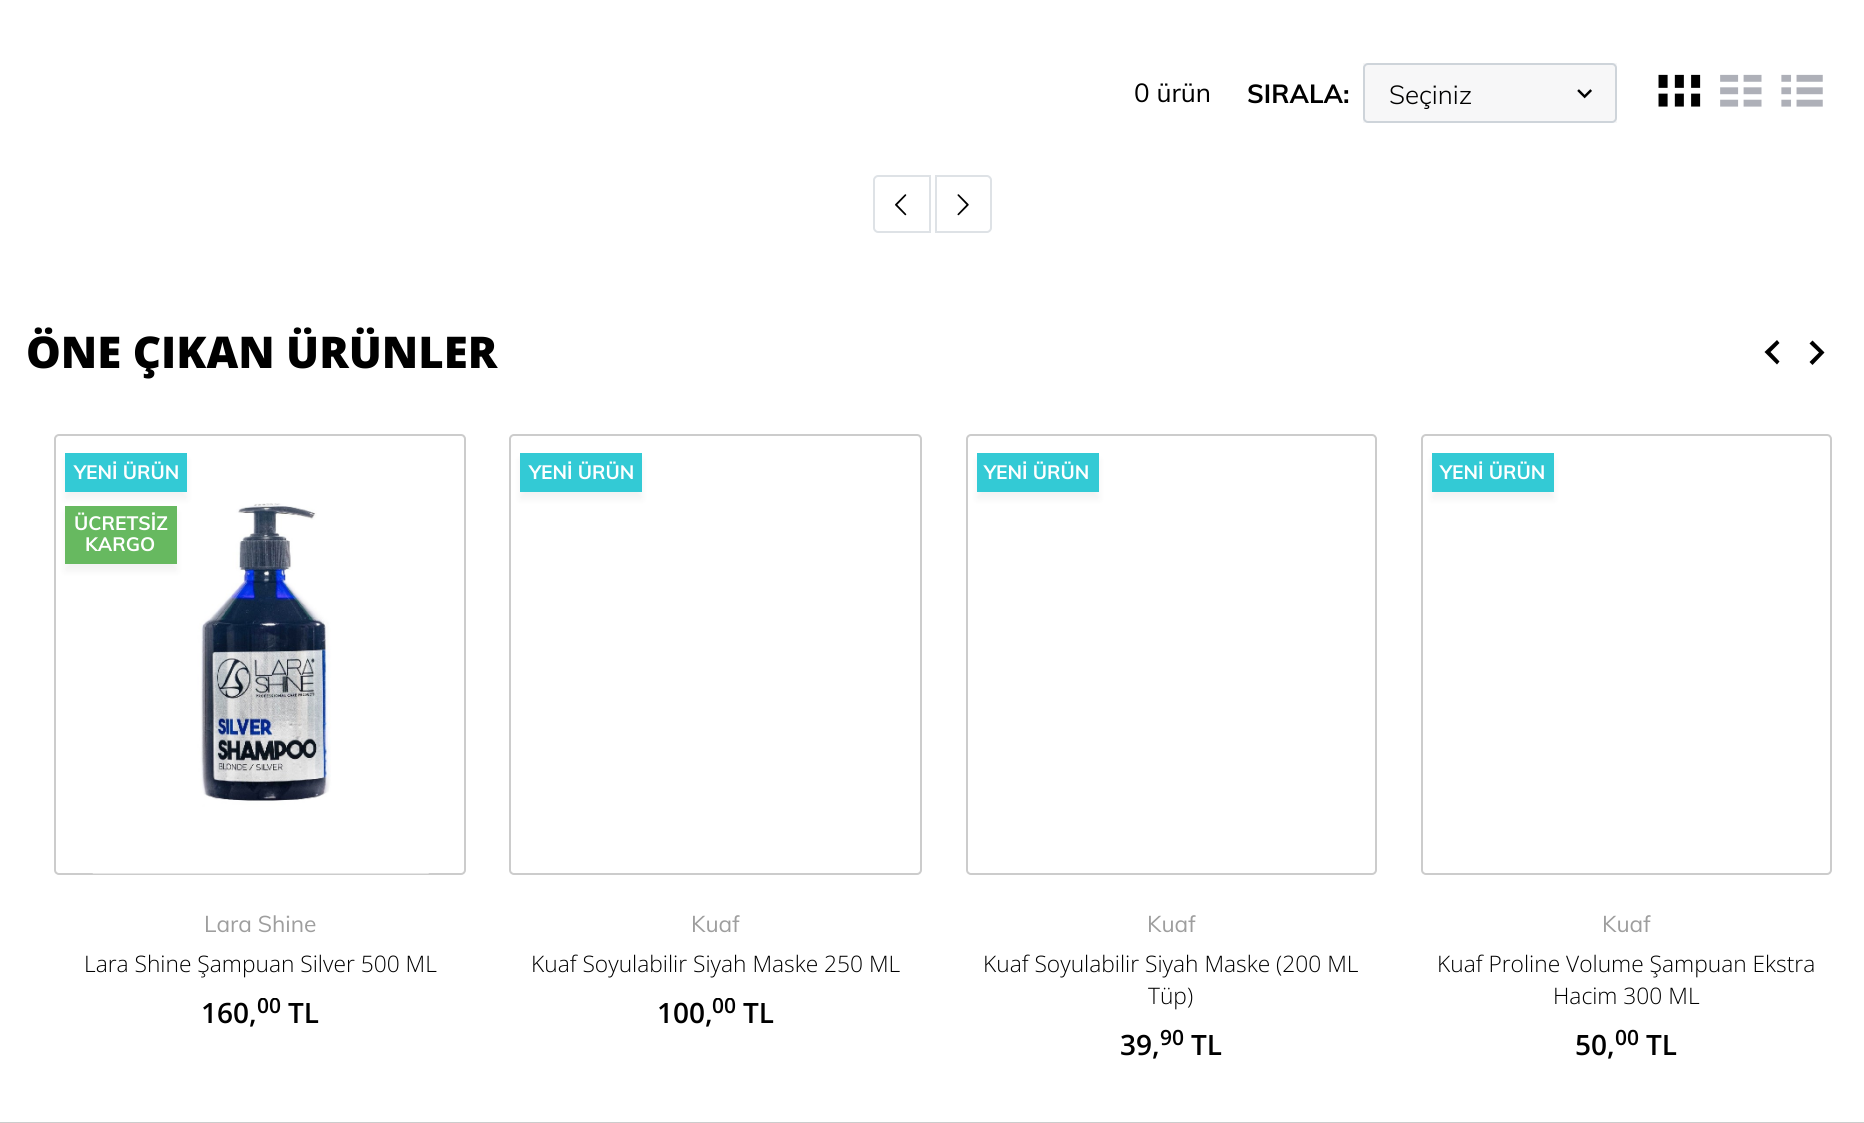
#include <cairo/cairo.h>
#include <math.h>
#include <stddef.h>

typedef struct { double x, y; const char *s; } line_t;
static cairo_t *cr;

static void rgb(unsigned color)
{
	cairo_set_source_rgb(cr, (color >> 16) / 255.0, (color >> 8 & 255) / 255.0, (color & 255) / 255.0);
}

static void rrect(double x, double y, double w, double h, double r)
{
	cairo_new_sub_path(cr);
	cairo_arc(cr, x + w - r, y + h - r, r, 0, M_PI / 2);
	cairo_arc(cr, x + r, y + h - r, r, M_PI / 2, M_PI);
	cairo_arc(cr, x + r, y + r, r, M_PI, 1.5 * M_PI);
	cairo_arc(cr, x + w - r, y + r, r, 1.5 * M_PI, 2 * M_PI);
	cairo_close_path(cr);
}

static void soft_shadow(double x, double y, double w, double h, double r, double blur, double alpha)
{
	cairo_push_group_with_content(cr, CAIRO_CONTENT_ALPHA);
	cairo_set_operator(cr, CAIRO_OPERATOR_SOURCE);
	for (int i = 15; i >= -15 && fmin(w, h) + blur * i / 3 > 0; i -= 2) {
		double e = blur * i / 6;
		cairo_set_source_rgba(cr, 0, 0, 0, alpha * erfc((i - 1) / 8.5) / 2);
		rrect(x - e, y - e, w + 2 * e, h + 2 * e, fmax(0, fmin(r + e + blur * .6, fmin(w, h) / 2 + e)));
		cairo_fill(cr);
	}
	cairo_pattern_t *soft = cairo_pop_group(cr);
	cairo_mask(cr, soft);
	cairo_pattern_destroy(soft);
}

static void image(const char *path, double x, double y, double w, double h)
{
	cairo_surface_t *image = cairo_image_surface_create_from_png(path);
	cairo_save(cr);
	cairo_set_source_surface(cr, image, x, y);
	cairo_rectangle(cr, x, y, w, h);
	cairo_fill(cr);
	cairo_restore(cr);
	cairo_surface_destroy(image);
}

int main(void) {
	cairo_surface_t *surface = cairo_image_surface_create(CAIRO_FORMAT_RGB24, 1864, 1123);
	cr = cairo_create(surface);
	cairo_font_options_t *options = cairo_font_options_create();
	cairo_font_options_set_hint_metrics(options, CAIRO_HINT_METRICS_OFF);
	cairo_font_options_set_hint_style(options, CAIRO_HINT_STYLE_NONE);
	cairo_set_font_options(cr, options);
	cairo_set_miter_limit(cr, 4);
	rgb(0xffffff);
	cairo_paint(cr);
	rgb(0xf7f7f8);
	cairo_rectangle(cr, 1363, 63, 254, 60);
	cairo_fill(cr);
	rrect(1364, 64, 252, 58, 4);
	rgb(0xced4da);
	cairo_stroke(cr);
	image("img/1.png", 1577, 89, 15, 10);
	image("img/2.png", 1658, 74, 43, 33);
	image("img/3.png", 1720, 74, 42, 33);
	image("img/4.png", 1781, 74, 42, 33);
	cairo_new_path(cr);
	cairo_move_to(cr, 878, 176);
	cairo_line_to(cr, 930, 176);
	cairo_line_to(cr, 930, 232);
	cairo_line_to(cr, 878, 232);
	cairo_curve_to(cr, 876, 232, 874, 230, 874, 228);
	cairo_line_to(cr, 874, 180);
	cairo_curve_to(cr, 874, 178, 876, 176, 878, 176);
	cairo_close_path(cr);
	rgb(0xdee2e6);
	cairo_stroke(cr);
	image("img/5.png", 895, 194, 12, 22);
	cairo_new_path(cr);
	cairo_move_to(cr, 936, 176);
	cairo_line_to(cr, 987, 176);
	cairo_curve_to(cr, 989, 176, 991, 178, 991, 180);
	cairo_line_to(cr, 991, 228);
	cairo_curve_to(cr, 991, 230, 989, 232, 987, 232);
	cairo_line_to(cr, 936, 232);
	cairo_close_path(cr);
	cairo_stroke(cr);
	image("img/6.png", 957, 194, 12, 22);
	rgb(0x000000);
	cairo_new_path(cr);
	cairo_move_to(cr, 1809.5, 362);
	cairo_line_to(cr, 1819, 352.5);
	cairo_line_to(cr, 1809.5, 343.5);
	cairo_line_to(cr, 1812.5, 340.5);
	cairo_line_to(cr, 1824.5, 352.5);
	cairo_line_to(cr, 1812.5, 365);
	cairo_close_path(cr);
	cairo_move_to(cr, 1779.5, 361.5);
	cairo_line_to(cr, 1777, 364.5);
	cairo_line_to(cr, 1764.5, 352);
	cairo_line_to(cr, 1777, 340);
	cairo_line_to(cr, 1779.5, 343);
	cairo_line_to(cr, 1770.5, 352);
	cairo_close_path(cr);
	cairo_fill(cr);
	rrect(55, 435, 410, 439, 4);
	rgb(0xcccccc);
	cairo_stroke(cr);
	image("img/7.png", 92, 503, 337, 371);
	rgb(0x000000);
	soft_shadow(65, 460, 122, 39, 0, 3.5, 0.05);
	rgb(0x33cad5);
	cairo_rectangle(cr, 65, 453, 122, 39);
	cairo_fill(cr);
	rgb(0x000000);
	soft_shadow(65, 513, 112, 58, 0, 3.5, 0.05);
	rgb(0x67b960);
	cairo_rectangle(cr, 65, 506, 112, 58);
	cairo_fill(cr);
	rrect(510, 435, 411, 439, 4);
	rgb(0xcccccc);
	cairo_stroke(cr);
	rgb(0x000000);
	soft_shadow(520, 460, 122, 39, 0, 3.5, 0.05);
	rgb(0x33cad5);
	cairo_rectangle(cr, 520, 453, 122, 39);
	cairo_fill(cr);
	rrect(967, 435, 409, 439, 4);
	rgb(0xcccccc);
	cairo_stroke(cr);
	rgb(0x000000);
	soft_shadow(977, 460, 122, 39, 0, 3.5, 0.05);
	rgb(0x33cad5);
	cairo_rectangle(cr, 977, 453, 122, 39);
	cairo_fill(cr);
	rrect(1422, 435, 409, 439, 4);
	rgb(0xcccccc);
	cairo_stroke(cr);
	rgb(0x000000);
	soft_shadow(1432, 460, 122, 39, 0, 3.5, 0.05);
	rgb(0x33cad5);
	cairo_rectangle(cr, 1432, 453, 122, 39);
	cairo_fill(cr);
	rgb(0xcccccc);
	cairo_rectangle(cr, 0, 1122, 1864, 1);
	cairo_fill(cr);
	cairo_select_font_face(cr, "Muli", CAIRO_FONT_SLANT_NORMAL, CAIRO_FONT_WEIGHT_NORMAL);
	cairo_set_font_size(cr, 26);
	rgb(0x000000);
	cairo_move_to(cr, 1134, 102);
	cairo_show_text(cr, "0 ürün");
	cairo_select_font_face(cr, "Muli", CAIRO_FONT_SLANT_NORMAL, CAIRO_FONT_WEIGHT_BOLD);
	cairo_move_to(cr, 1247, 103);
	cairo_show_text(cr, "SIRALA:");
	cairo_select_font_face(cr, "Muli Light", CAIRO_FONT_SLANT_NORMAL, CAIRO_FONT_WEIGHT_NORMAL);
	cairo_move_to(cr, 1389, 104);
	cairo_show_text(cr, "Seçiniz");
	cairo_select_font_face(cr, "Open Sans ExtraBold", CAIRO_FONT_SLANT_NORMAL, CAIRO_FONT_WEIGHT_NORMAL);
	cairo_set_font_size(cr, 43.75);
	cairo_move_to(cr, 26, 368);
	cairo_show_text(cr, "ÖNE ÇIKAN ÜRÜNLER");
	cairo_select_font_face(cr, "Muli", CAIRO_FONT_SLANT_NORMAL, CAIRO_FONT_WEIGHT_BOLD);
	cairo_set_font_size(cr, 19.25);
	rgb(0xffffff);
	{
		static const line_t items[] = {
			{74, 479, "YENİ ÜRÜN"},
			{74, 530, "ÜCRETSİZ"},
			{85, 551, "KARGO"},
		};
		for (size_t i = 0; i < sizeof items / sizeof *items; i++) {
			cairo_move_to(cr, items[i].x, items[i].y);
			cairo_show_text(cr, items[i].s);
		}
	}
	cairo_select_font_face(cr, "Muli", CAIRO_FONT_SLANT_NORMAL, CAIRO_FONT_WEIGHT_NORMAL);
	cairo_set_font_size(cr, 22.75);
	rgb(0x9e9e9e);
	cairo_move_to(cr, 204, 932);
	cairo_show_text(cr, "Lara Shine");
	cairo_select_font_face(cr, "Open Sans Light", CAIRO_FONT_SLANT_NORMAL, CAIRO_FONT_WEIGHT_NORMAL);
	rgb(0x000000);
	cairo_move_to(cr, 84, 972);
	cairo_show_text(cr, "Lara Shine Şampuan Silver 500 ML");
	cairo_select_font_face(cr, "Open Sans SemiBold", CAIRO_FONT_SLANT_NORMAL, CAIRO_FONT_WEIGHT_NORMAL);
	cairo_set_font_size(cr, 28);
	cairo_move_to(cr, 201, 1023);
	cairo_show_text(cr, "160,");
	cairo_save(cr);
	cairo_rectangle(cr, 63, 998, 394, 75);
	cairo_clip(cr);
	cairo_set_font_size(cr, 21);
	cairo_move_to(cr, 257, 1013);
	cairo_show_text(cr, "00");
	cairo_restore(cr);
	cairo_move_to(cr, 288, 1023);
	cairo_show_text(cr, "TL");
	cairo_select_font_face(cr, "Muli", CAIRO_FONT_SLANT_NORMAL, CAIRO_FONT_WEIGHT_BOLD);
	cairo_set_font_size(cr, 19.25);
	rgb(0xffffff);
	cairo_move_to(cr, 529, 479);
	cairo_show_text(cr, "YENİ ÜRÜN");
	cairo_select_font_face(cr, "Muli", CAIRO_FONT_SLANT_NORMAL, CAIRO_FONT_WEIGHT_NORMAL);
	cairo_set_font_size(cr, 22.75);
	rgb(0x9e9e9e);
	cairo_move_to(cr, 691, 932);
	cairo_show_text(cr, "Kuaf");
	cairo_select_font_face(cr, "Open Sans Light", CAIRO_FONT_SLANT_NORMAL, CAIRO_FONT_WEIGHT_NORMAL);
	rgb(0x000000);
	cairo_move_to(cr, 531, 972);
	cairo_show_text(cr, "Kuaf Soyulabilir Siyah Maske 250 ML");
	cairo_select_font_face(cr, "Open Sans SemiBold", CAIRO_FONT_SLANT_NORMAL, CAIRO_FONT_WEIGHT_NORMAL);
	cairo_set_font_size(cr, 28);
	cairo_move_to(cr, 657, 1023);
	cairo_show_text(cr, "100,");
	cairo_save(cr);
	cairo_rectangle(cr, 518, 998, 396, 75);
	cairo_clip(cr);
	cairo_set_font_size(cr, 21);
	cairo_move_to(cr, 712, 1013);
	cairo_show_text(cr, "00");
	cairo_restore(cr);
	cairo_move_to(cr, 743, 1023);
	cairo_show_text(cr, "TL");
	cairo_select_font_face(cr, "Muli", CAIRO_FONT_SLANT_NORMAL, CAIRO_FONT_WEIGHT_BOLD);
	cairo_set_font_size(cr, 19.25);
	rgb(0xffffff);
	cairo_move_to(cr, 984, 479);
	cairo_show_text(cr, "YENİ ÜRÜN");
	cairo_select_font_face(cr, "Muli", CAIRO_FONT_SLANT_NORMAL, CAIRO_FONT_WEIGHT_NORMAL);
	cairo_set_font_size(cr, 22.75);
	rgb(0x9e9e9e);
	cairo_move_to(cr, 1147, 932);
	cairo_show_text(cr, "Kuaf");
	cairo_select_font_face(cr, "Open Sans Light", CAIRO_FONT_SLANT_NORMAL, CAIRO_FONT_WEIGHT_NORMAL);
	rgb(0x000000);
	cairo_move_to(cr, 983, 972);
	cairo_show_text(cr, "Kuaf Soyulabilir Siyah Maske (200 ML");
	cairo_move_to(cr, 1148, 1004);
	cairo_show_text(cr, "Tüp)");
	cairo_select_font_face(cr, "Open Sans SemiBold", CAIRO_FONT_SLANT_NORMAL, CAIRO_FONT_WEIGHT_NORMAL);
	cairo_set_font_size(cr, 28);
	cairo_move_to(cr, 1120, 1055);
	cairo_show_text(cr, "39,");
	cairo_set_font_size(cr, 21);
	cairo_move_to(cr, 1160, 1045);
	cairo_show_text(cr, "90");
	cairo_set_font_size(cr, 28);
	cairo_move_to(cr, 1191, 1055);
	cairo_show_text(cr, "TL");
	cairo_select_font_face(cr, "Muli", CAIRO_FONT_SLANT_NORMAL, CAIRO_FONT_WEIGHT_BOLD);
	cairo_set_font_size(cr, 19.25);
	rgb(0xffffff);
	cairo_move_to(cr, 1440, 479);
	cairo_show_text(cr, "YENİ ÜRÜN");
	cairo_select_font_face(cr, "Muli", CAIRO_FONT_SLANT_NORMAL, CAIRO_FONT_WEIGHT_NORMAL);
	cairo_set_font_size(cr, 22.75);
	rgb(0x9e9e9e);
	cairo_move_to(cr, 1602, 932);
	cairo_show_text(cr, "Kuaf");
	cairo_select_font_face(cr, "Open Sans Light", CAIRO_FONT_SLANT_NORMAL, CAIRO_FONT_WEIGHT_NORMAL);
	rgb(0x000000);
	cairo_move_to(cr, 1437, 972);
	cairo_show_text(cr, "Kuaf Proline Volume Şampuan Ekstra");
	cairo_move_to(cr, 1553, 1004);
	cairo_show_text(cr, "Hacim 300 ML");
	cairo_select_font_face(cr, "Open Sans SemiBold", CAIRO_FONT_SLANT_NORMAL, CAIRO_FONT_WEIGHT_NORMAL);
	cairo_set_font_size(cr, 28);
	cairo_move_to(cr, 1575, 1055);
	cairo_show_text(cr, "50,");
	cairo_set_font_size(cr, 21);
	cairo_move_to(cr, 1615, 1045);
	cairo_show_text(cr, "00");
	cairo_set_font_size(cr, 28);
	cairo_move_to(cr, 1646, 1055);
	cairo_show_text(cr, "TL");
	cairo_surface_write_to_png(surface, "page.png");
	cairo_font_options_destroy(options);
	cairo_destroy(cr);
	cairo_surface_destroy(surface);
	return 0;
}
